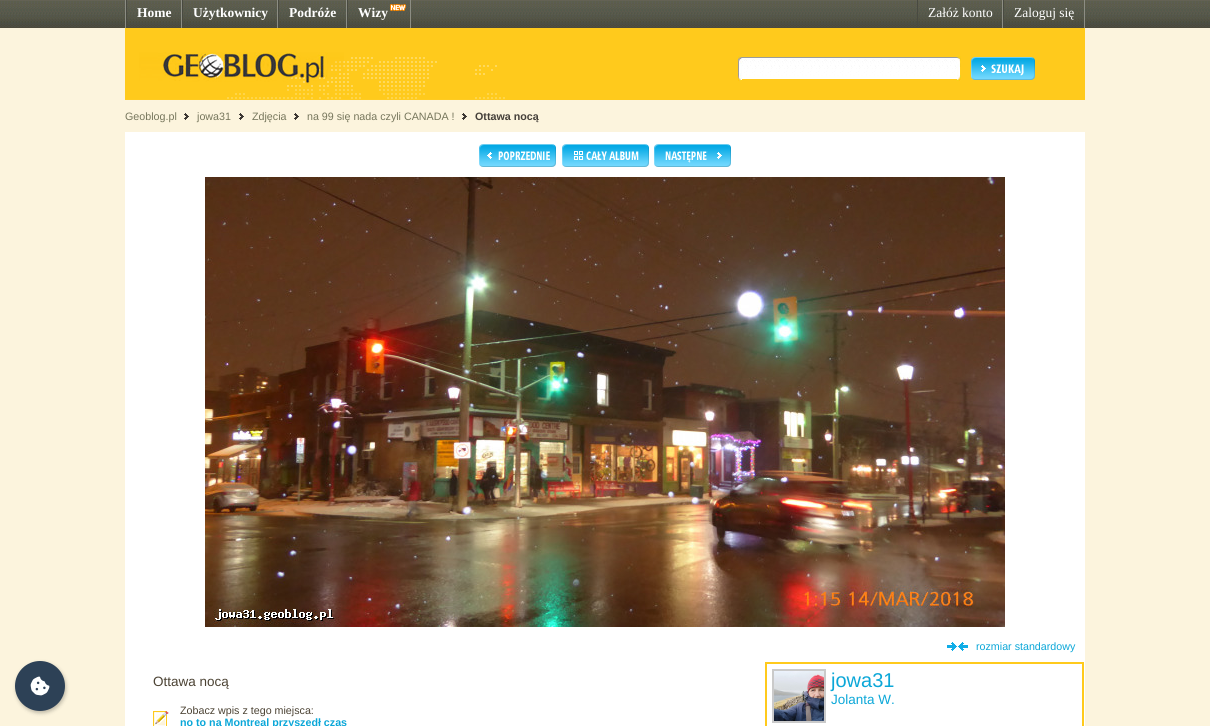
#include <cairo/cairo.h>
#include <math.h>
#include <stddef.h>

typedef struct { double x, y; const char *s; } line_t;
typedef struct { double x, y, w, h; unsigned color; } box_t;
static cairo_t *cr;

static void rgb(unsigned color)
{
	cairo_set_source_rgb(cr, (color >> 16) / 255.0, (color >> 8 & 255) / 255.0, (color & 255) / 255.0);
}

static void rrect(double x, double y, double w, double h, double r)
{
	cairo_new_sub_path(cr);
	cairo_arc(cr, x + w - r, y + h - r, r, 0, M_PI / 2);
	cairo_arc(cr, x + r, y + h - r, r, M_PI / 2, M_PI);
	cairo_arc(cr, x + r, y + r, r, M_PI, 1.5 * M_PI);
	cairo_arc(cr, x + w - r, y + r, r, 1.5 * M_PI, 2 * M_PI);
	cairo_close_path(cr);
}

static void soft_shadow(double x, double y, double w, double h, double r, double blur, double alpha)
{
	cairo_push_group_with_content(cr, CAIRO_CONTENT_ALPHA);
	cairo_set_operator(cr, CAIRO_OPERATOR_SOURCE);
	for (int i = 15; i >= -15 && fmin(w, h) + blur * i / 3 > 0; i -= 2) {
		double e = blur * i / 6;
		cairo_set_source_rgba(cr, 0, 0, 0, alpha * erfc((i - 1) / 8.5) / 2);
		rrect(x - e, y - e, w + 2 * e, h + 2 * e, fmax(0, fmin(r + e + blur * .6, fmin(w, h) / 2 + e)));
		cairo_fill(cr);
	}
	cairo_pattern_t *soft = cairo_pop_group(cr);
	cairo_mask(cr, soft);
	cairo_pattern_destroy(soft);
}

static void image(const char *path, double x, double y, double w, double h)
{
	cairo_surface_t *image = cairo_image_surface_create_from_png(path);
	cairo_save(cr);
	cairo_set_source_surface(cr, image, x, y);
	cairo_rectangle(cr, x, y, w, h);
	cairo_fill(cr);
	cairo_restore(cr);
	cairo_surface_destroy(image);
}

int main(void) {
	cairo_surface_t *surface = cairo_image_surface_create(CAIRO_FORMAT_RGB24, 1210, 726);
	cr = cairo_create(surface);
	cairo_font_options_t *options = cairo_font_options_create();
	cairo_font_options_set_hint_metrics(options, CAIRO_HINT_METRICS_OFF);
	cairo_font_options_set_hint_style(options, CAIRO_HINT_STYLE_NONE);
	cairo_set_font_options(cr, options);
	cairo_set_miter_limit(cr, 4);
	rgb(0xfcf4dd);
	cairo_paint(cr);
	image("img/1.png", 0, 0, 1210, 28);
	rgb(0x000000);
	soft_shadow(16, 663, 50, 50, 25, 2, 0.25);
	rgb(0x2d4156);
	cairo_arc(cr, 40, 686, 25, 0, 2 * M_PI);
	cairo_fill(cr);
	image("img/2.png", 30, 676, 20, 20);
	{
		static const box_t items[] = {
			{125, 0, 1, 28, 0x8c8d83},
			{181, 0, 1, 28, 0x8c8d83},
			{126, 0, 1, 28, 0x494a41},
			{277, 0, 1, 28, 0x8c8d83},
			{182, 0, 1, 28, 0x494a41},
			{346, 0, 1, 28, 0x8c8d83},
			{278, 0, 1, 28, 0x494a41},
			{410, 0, 1, 28, 0x8c8d83},
			{347, 0, 1, 28, 0x494a41},
		};
		for (size_t i = 0; i < sizeof items / sizeof *items; i++) {
			rgb(items[i].color);
			cairo_rectangle(cr, items[i].x, items[i].y, items[i].w, items[i].h);
			cairo_fill(cr);
		}
	}
	image("img/3.png", 390, 4, 16, 7);
	{
		static const box_t items[] = {
			{1002, 0, 1, 28, 0x8c8d83},
			{917, 0, 1, 28, 0x494a41},
			{1084, 0, 1, 28, 0x8c8d83},
			{1003, 0, 1, 28, 0x494a41},
			{125, 28, 960, 72, 0xffca1c},
		};
		for (size_t i = 0; i < sizeof items / sizeof *items; i++) {
			rgb(items[i].color);
			cairo_rectangle(cr, items[i].x, items[i].y, items[i].w, items[i].h);
			cairo_fill(cr);
		}
	}
	image("img/4.png", 125, 52, 380, 48);
	image("img/5.png", 738, 56, 4, 25);
	rgb(0xffffff);
	cairo_rectangle(cr, 742, 78, 215, 1);
	cairo_fill(cr);
	image("img/6.png", 742, 56, 215, 22);
	image("img/7.png", 957, 56, 4, 25);
	image("img/8.png", 971, 57, 64, 23);
	image("img/9.png", 184, 113, 5, 7);
	image("img/9.png", 239, 113, 5, 7);
	image("img/9.png", 294, 113, 5, 7);
	image("img/9.png", 462, 113, 5, 7);
	cairo_rectangle(cr, 125, 132, 960, 594);
	cairo_fill(cr);
	image("img/10.png", 479, 144, 77, 23);
	image("img/11.png", 562, 144, 87, 23);
	image("img/12.png", 654, 144, 77, 23);
	image("img/13.png", 205, 177, 800, 450);
	image("img/14.png", 947, 642, 21, 9);
	image("img/15.png", 153, 711, 16, 15);
	cairo_rectangle(cr, 766, 663, 317, 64);
	rgb(0xffca1c);
	cairo_stroke(cr);
	cairo_rectangle(cr, 773, 670, 52, 52);
	rgb(0xcacaca);
	cairo_stroke(cr);
	image("img/16.png", 774, 671, 50, 50);
	cairo_select_font_face(cr, "Liberation Serif", CAIRO_FONT_SLANT_NORMAL, CAIRO_FONT_WEIGHT_BOLD);
	cairo_set_font_size(cr, 13.5);
	rgb(0xffffff);
	{
		static const line_t items[] = {
			{137, 17, "Home"},
			{193, 17, "Użytkownicy"},
			{289, 17, "Podróże"},
			{358, 17, "Wizy"},
		};
		for (size_t i = 0; i < sizeof items / sizeof *items; i++) {
			cairo_move_to(cr, items[i].x, items[i].y);
			cairo_show_text(cr, items[i].s);
		}
	}
	cairo_select_font_face(cr, "Liberation Serif", CAIRO_FONT_SLANT_NORMAL, CAIRO_FONT_WEIGHT_NORMAL);
	cairo_move_to(cr, 928, 17);
	cairo_show_text(cr, "Załóż konto");
	cairo_move_to(cr, 1014, 17);
	cairo_show_text(cr, "Zaloguj się");
	cairo_select_font_face(cr, "Liberation Sans", CAIRO_FONT_SLANT_NORMAL, CAIRO_FONT_WEIGHT_NORMAL);
	cairo_set_font_size(cr, 10.7);
	rgb(0x76765c);
	{
		static const line_t items[] = {
			{125, 120, "Geoblog.pl"},
			{197, 120, "jowa31"},
			{252, 120, "Zdjęcia"},
			{307, 120, "na 99 się nada czyli CANADA !"},
		};
		for (size_t i = 0; i < sizeof items / sizeof *items; i++) {
			cairo_move_to(cr, items[i].x, items[i].y);
			cairo_show_text(cr, items[i].s);
		}
	}
	cairo_select_font_face(cr, "Liberation Sans", CAIRO_FONT_SLANT_NORMAL, CAIRO_FONT_WEIGHT_BOLD);
	rgb(0x443f39);
	cairo_move_to(cr, 475, 120);
	cairo_show_text(cr, "Ottawa nocą");
	cairo_select_font_face(cr, "Liberation Sans", CAIRO_FONT_SLANT_NORMAL, CAIRO_FONT_WEIGHT_NORMAL);
	rgb(0x0ba7d8);
	cairo_move_to(cr, 976, 650);
	cairo_show_text(cr, "rozmiar standardowy");
	cairo_set_font_size(cr, 13.5);
	rgb(0x4b4233);
	cairo_move_to(cr, 153, 686);
	cairo_show_text(cr, "Ottawa nocą");
	cairo_set_font_size(cr, 10.7);
	cairo_move_to(cr, 180, 714);
	cairo_show_text(cr, "Zobacz wpis z tego miejsca:");
	cairo_select_font_face(cr, "Liberation Sans", CAIRO_FONT_SLANT_NORMAL, CAIRO_FONT_WEIGHT_BOLD);
	rgb(0x0ba7d8);
	cairo_move_to(cr, 180, 726);
	cairo_show_text(cr, "no to na Montreal przyszedł czas");
	cairo_select_font_face(cr, "Liberation Sans", CAIRO_FONT_SLANT_NORMAL, CAIRO_FONT_WEIGHT_NORMAL);
	cairo_set_font_size(cr, 20);
	cairo_move_to(cr, 831, 687);
	cairo_show_text(cr, "jowa31");
	cairo_set_font_size(cr, 13.5);
	cairo_move_to(cr, 831, 704);
	cairo_show_text(cr, "Jolanta W.");
	cairo_surface_write_to_png(surface, "page.png");
	cairo_font_options_destroy(options);
	cairo_destroy(cr);
	cairo_surface_destroy(surface);
	return 0;
}
